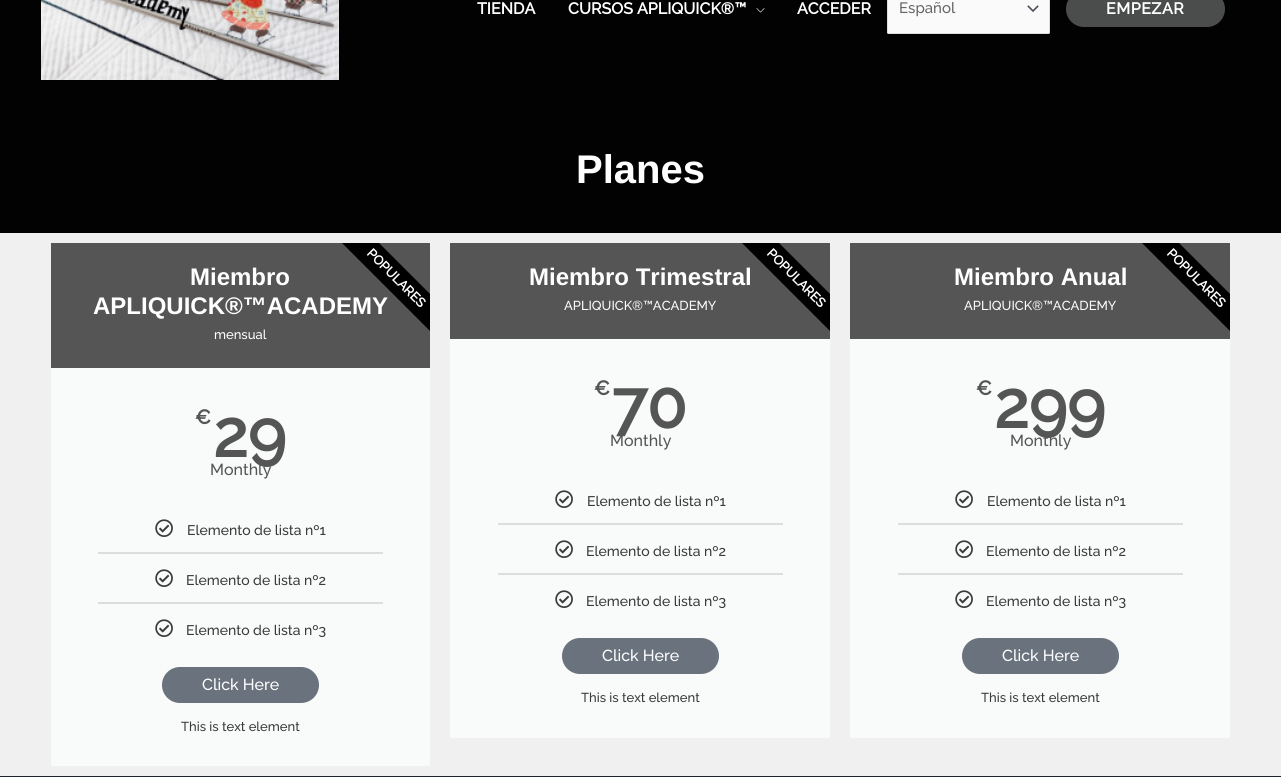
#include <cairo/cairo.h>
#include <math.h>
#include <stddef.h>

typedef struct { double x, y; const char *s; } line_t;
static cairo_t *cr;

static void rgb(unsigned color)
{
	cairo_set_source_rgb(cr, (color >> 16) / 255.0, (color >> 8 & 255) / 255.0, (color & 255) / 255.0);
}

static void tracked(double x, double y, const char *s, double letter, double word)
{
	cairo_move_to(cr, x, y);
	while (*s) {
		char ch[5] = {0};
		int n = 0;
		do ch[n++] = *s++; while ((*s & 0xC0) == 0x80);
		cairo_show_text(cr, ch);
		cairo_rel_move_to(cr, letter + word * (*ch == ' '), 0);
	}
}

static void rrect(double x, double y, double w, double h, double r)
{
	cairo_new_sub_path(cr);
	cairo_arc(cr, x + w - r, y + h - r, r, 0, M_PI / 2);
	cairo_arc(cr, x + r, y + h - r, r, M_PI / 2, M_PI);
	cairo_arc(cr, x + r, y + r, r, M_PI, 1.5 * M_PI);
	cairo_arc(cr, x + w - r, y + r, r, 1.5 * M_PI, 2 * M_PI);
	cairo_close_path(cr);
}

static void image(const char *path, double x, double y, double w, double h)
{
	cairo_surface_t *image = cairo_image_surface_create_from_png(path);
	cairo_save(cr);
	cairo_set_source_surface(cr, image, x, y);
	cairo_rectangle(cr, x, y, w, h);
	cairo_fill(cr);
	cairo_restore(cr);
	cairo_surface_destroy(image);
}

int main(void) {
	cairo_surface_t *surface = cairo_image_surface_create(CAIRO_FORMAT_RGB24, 1281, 777);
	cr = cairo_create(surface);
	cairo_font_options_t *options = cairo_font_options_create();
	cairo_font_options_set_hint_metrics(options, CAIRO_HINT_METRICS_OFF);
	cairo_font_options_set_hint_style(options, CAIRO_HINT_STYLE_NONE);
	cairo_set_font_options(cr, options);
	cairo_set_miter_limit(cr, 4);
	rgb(0xf0f0f0);
	cairo_paint(cr);
	rgb(0x020202);
	cairo_rectangle(cr, 0, 0, 1281, 233);
	cairo_fill(cr);
	image("img/1.png", 41, 0, 298, 80);
	image("img/2.png", 756, 8, 9, 5);
	rgb(0xfafafa);
	rrect(887, -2, 163, 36, 2);
	cairo_fill(cr);
	image("img/3.png", 1027, 5, 12, 7);
	rrect(887.5, -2.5, 162, 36, 1.5);
	rgb(0xdddddd);
	cairo_set_line_width(cr, 1);
	cairo_stroke(cr);
	rgb(0x4b4d4d);
	rrect(1066, -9, 159, 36, 18);
	cairo_fill(cr);
	rgb(0xf9fafa);
	cairo_rectangle(cr, 51, 368, 379, 398);
	cairo_fill(cr);
	rgb(0x555555);
	cairo_rectangle(cr, 51, 243, 379, 125);
	cairo_fill(cr);
	image("img/4.png", 155, 519, 18, 18);
	rgb(0xdddddd);
	cairo_rectangle(cr, 98, 552, 285, 2);
	cairo_fill(cr);
	image("img/4.png", 155, 569, 18, 18);
	cairo_rectangle(cr, 98, 602, 285, 2);
	cairo_fill(cr);
	image("img/4.png", 155, 619, 18, 18);
	rgb(0x69727d);
	rrect(162, 667, 157, 36, 18);
	cairo_fill(cr);
	rgb(0xf9fafa);
	cairo_rectangle(cr, 450, 339, 380, 399);
	cairo_fill(cr);
	rgb(0x555555);
	cairo_rectangle(cr, 450, 243, 380, 96);
	cairo_fill(cr);
	image("img/4.png", 555, 490, 18, 18);
	rgb(0xdddddd);
	cairo_rectangle(cr, 498, 523, 285, 2);
	cairo_fill(cr);
	image("img/4.png", 555, 540, 18, 18);
	cairo_rectangle(cr, 498, 573, 285, 2);
	cairo_fill(cr);
	image("img/4.png", 555, 590, 18, 18);
	rgb(0x69727d);
	rrect(562, 638, 157, 36, 18);
	cairo_fill(cr);
	rgb(0xf9fafa);
	cairo_rectangle(cr, 850, 339, 380, 399);
	cairo_fill(cr);
	rgb(0x555555);
	cairo_rectangle(cr, 850, 243, 380, 96);
	cairo_fill(cr);
	image("img/4.png", 955, 490, 18, 18);
	rgb(0xdddddd);
	cairo_rectangle(cr, 898, 523, 285, 2);
	cairo_fill(cr);
	image("img/4.png", 955, 540, 18, 18);
	cairo_rectangle(cr, 898, 573, 285, 2);
	cairo_fill(cr);
	image("img/4.png", 955, 590, 18, 18);
	rgb(0x69727d);
	rrect(962, 638, 157, 36, 18);
	cairo_fill(cr);
	rgb(0x000000);
	cairo_new_path(cr);
	cairo_move_to(cr, 1230, 331);
	cairo_line_to(cr, 1142, 243);
	cairo_line_to(cr, 1179, 243);
	cairo_line_to(cr, 1230, 294);
	cairo_close_path(cr);
	cairo_fill(cr);
	rgb(0x1c232f);
	cairo_rectangle(cr, 0, 776, 1281, 1);
	cairo_fill(cr);
	cairo_select_font_face(cr, "Raleway", CAIRO_FONT_SLANT_NORMAL, CAIRO_FONT_WEIGHT_BOLD);
	cairo_set_font_size(cr, 16);
	rgb(0xffffff);
	{
		static const line_t items[] = {
			{477, 14, "TIENDA"},
			{568, 14, "CURSOS APLIQUICK®™"},
			{797, 14, "ACCEDER"},
		};
		for (size_t i = 0; i < sizeof items / sizeof *items; i++) {
			cairo_move_to(cr, items[i].x, items[i].y);
			cairo_show_text(cr, items[i].s);
		}
	}
	cairo_select_font_face(cr, "Raleway Thin", CAIRO_FONT_SLANT_NORMAL, CAIRO_FONT_WEIGHT_NORMAL);
	cairo_set_font_size(cr, 15);
	rgb(0x666666);
	cairo_move_to(cr, 899, 13);
	cairo_show_text(cr, "Español");
	cairo_select_font_face(cr, "Raleway", CAIRO_FONT_SLANT_NORMAL, CAIRO_FONT_WEIGHT_BOLD);
	cairo_set_font_size(cr, 16);
	rgb(0xffffff);
	tracked(1106, 14, "EMPEZAR", 0.5, 0);
	cairo_select_font_face(cr, "Liberation Sans", CAIRO_FONT_SLANT_NORMAL, CAIRO_FONT_WEIGHT_BOLD);
	cairo_set_font_size(cr, 40);
	cairo_move_to(cr, 576, 183);
	cairo_show_text(cr, "Planes");
	cairo_set_font_size(cr, 24);
	cairo_move_to(cr, 190, 285);
	cairo_show_text(cr, "Miembro");
	cairo_move_to(cr, 93, 314);
	cairo_show_text(cr, "APLIQUICK®™ACADEMY");
	cairo_select_font_face(cr, "Raleway Thin", CAIRO_FONT_SLANT_NORMAL, CAIRO_FONT_WEIGHT_NORMAL);
	cairo_set_font_size(cr, 13);
	cairo_move_to(cr, 214, 339);
	cairo_show_text(cr, "mensual");
	cairo_select_font_face(cr, "Raleway", CAIRO_FONT_SLANT_NORMAL, CAIRO_FONT_WEIGHT_BOLD);
	cairo_set_font_size(cr, 20);
	rgb(0x555555);
	cairo_move_to(cr, 195, 424);
	cairo_show_text(cr, "€");
	cairo_set_font_size(cr, 65);
	cairo_move_to(cr, 213, 457);
	cairo_show_text(cr, "29");
	cairo_select_font_face(cr, "Raleway Thin", CAIRO_FONT_SLANT_NORMAL, CAIRO_FONT_WEIGHT_NORMAL);
	cairo_set_font_size(cr, 16);
	cairo_move_to(cr, 210, 475);
	cairo_show_text(cr, "Monthly");
	cairo_set_font_size(cr, 14);
	rgb(0x3a3a3a);
	{
		static const line_t items[] = {
			{187, 535, "Elemento de lista nº1"},
			{186, 585, "Elemento de lista nº2"},
			{186, 635, "Elemento de lista nº3"},
		};
		for (size_t i = 0; i < sizeof items / sizeof *items; i++) {
			cairo_move_to(cr, items[i].x, items[i].y);
			cairo_show_text(cr, items[i].s);
		}
	}
	cairo_set_font_size(cr, 16);
	rgb(0xffffff);
	cairo_move_to(cr, 202, 690);
	cairo_show_text(cr, "Click Here");
	cairo_set_font_size(cr, 13);
	rgb(0x3a3a3a);
	cairo_move_to(cr, 181, 731);
	cairo_show_text(cr, "This is text element");
	rgb(0x000000);
	cairo_new_path(cr);
	cairo_move_to(cr, 430, 331);
	cairo_line_to(cr, 342, 243);
	cairo_line_to(cr, 379, 243);
	cairo_line_to(cr, 430, 294);
	cairo_close_path(cr);
	cairo_fill(cr);
	cairo_select_font_face(cr, "Raleway", CAIRO_FONT_SLANT_NORMAL, CAIRO_FONT_WEIGHT_BOLD);
	rgb(0xffffff);
	cairo_save(cr);
	cairo_translate(cr, 366, 254);
	cairo_rotate(cr, 45 * M_PI / 180);
	cairo_move_to(cr, 0, 0);
	cairo_show_text(cr, "POPULARES");
	cairo_restore(cr);
	cairo_select_font_face(cr, "Liberation Sans", CAIRO_FONT_SLANT_NORMAL, CAIRO_FONT_WEIGHT_BOLD);
	cairo_set_font_size(cr, 24);
	cairo_move_to(cr, 529, 285);
	cairo_show_text(cr, "Miembro Trimestral");
	cairo_select_font_face(cr, "Raleway Thin", CAIRO_FONT_SLANT_NORMAL, CAIRO_FONT_WEIGHT_NORMAL);
	cairo_set_font_size(cr, 13);
	cairo_move_to(cr, 564, 310);
	cairo_show_text(cr, "APLIQUICK®™ACADEMY");
	cairo_select_font_face(cr, "Raleway", CAIRO_FONT_SLANT_NORMAL, CAIRO_FONT_WEIGHT_BOLD);
	cairo_set_font_size(cr, 20);
	rgb(0x555555);
	cairo_move_to(cr, 594, 395);
	cairo_show_text(cr, "€");
	cairo_set_font_size(cr, 65);
	cairo_move_to(cr, 612, 428);
	cairo_show_text(cr, "70");
	cairo_select_font_face(cr, "Raleway Thin", CAIRO_FONT_SLANT_NORMAL, CAIRO_FONT_WEIGHT_NORMAL);
	cairo_set_font_size(cr, 16);
	cairo_move_to(cr, 610, 446);
	cairo_show_text(cr, "Monthly");
	cairo_set_font_size(cr, 14);
	rgb(0x3a3a3a);
	{
		static const line_t items[] = {
			{587, 506, "Elemento de lista nº1"},
			{586, 556, "Elemento de lista nº2"},
			{586, 606, "Elemento de lista nº3"},
		};
		for (size_t i = 0; i < sizeof items / sizeof *items; i++) {
			cairo_move_to(cr, items[i].x, items[i].y);
			cairo_show_text(cr, items[i].s);
		}
	}
	cairo_set_font_size(cr, 16);
	rgb(0xffffff);
	cairo_move_to(cr, 602, 661);
	cairo_show_text(cr, "Click Here");
	cairo_set_font_size(cr, 13);
	rgb(0x3a3a3a);
	cairo_move_to(cr, 581, 702);
	cairo_show_text(cr, "This is text element");
	rgb(0x000000);
	cairo_new_path(cr);
	cairo_move_to(cr, 830, 331);
	cairo_line_to(cr, 742, 243);
	cairo_line_to(cr, 779, 243);
	cairo_line_to(cr, 830, 294);
	cairo_close_path(cr);
	cairo_fill(cr);
	cairo_select_font_face(cr, "Raleway", CAIRO_FONT_SLANT_NORMAL, CAIRO_FONT_WEIGHT_BOLD);
	rgb(0xffffff);
	cairo_save(cr);
	cairo_translate(cr, 766, 254);
	cairo_rotate(cr, 45 * M_PI / 180);
	cairo_move_to(cr, 0, 0);
	cairo_show_text(cr, "POPULARES");
	cairo_restore(cr);
	cairo_select_font_face(cr, "Liberation Sans", CAIRO_FONT_SLANT_NORMAL, CAIRO_FONT_WEIGHT_BOLD);
	cairo_set_font_size(cr, 24);
	cairo_move_to(cr, 954, 285);
	cairo_show_text(cr, "Miembro Anual");
	cairo_select_font_face(cr, "Raleway Thin", CAIRO_FONT_SLANT_NORMAL, CAIRO_FONT_WEIGHT_NORMAL);
	cairo_set_font_size(cr, 13);
	cairo_move_to(cr, 964, 310);
	cairo_show_text(cr, "APLIQUICK®™ACADEMY");
	cairo_select_font_face(cr, "Raleway", CAIRO_FONT_SLANT_NORMAL, CAIRO_FONT_WEIGHT_BOLD);
	cairo_set_font_size(cr, 20);
	rgb(0x555555);
	cairo_move_to(cr, 976, 395);
	cairo_show_text(cr, "€");
	cairo_set_font_size(cr, 65);
	cairo_move_to(cr, 994, 428);
	cairo_show_text(cr, "299");
	cairo_select_font_face(cr, "Raleway Thin", CAIRO_FONT_SLANT_NORMAL, CAIRO_FONT_WEIGHT_NORMAL);
	cairo_set_font_size(cr, 16);
	cairo_move_to(cr, 1010, 446);
	cairo_show_text(cr, "Monthly");
	cairo_set_font_size(cr, 14);
	rgb(0x3a3a3a);
	{
		static const line_t items[] = {
			{987, 506, "Elemento de lista nº1"},
			{986, 556, "Elemento de lista nº2"},
			{986, 606, "Elemento de lista nº3"},
		};
		for (size_t i = 0; i < sizeof items / sizeof *items; i++) {
			cairo_move_to(cr, items[i].x, items[i].y);
			cairo_show_text(cr, items[i].s);
		}
	}
	cairo_set_font_size(cr, 16);
	rgb(0xffffff);
	cairo_move_to(cr, 1002, 661);
	cairo_show_text(cr, "Click Here");
	cairo_set_font_size(cr, 13);
	rgb(0x3a3a3a);
	cairo_move_to(cr, 981, 702);
	cairo_show_text(cr, "This is text element");
	cairo_select_font_face(cr, "Raleway", CAIRO_FONT_SLANT_NORMAL, CAIRO_FONT_WEIGHT_BOLD);
	rgb(0xffffff);
	cairo_save(cr);
	cairo_translate(cr, 1166, 254);
	cairo_rotate(cr, 45 * M_PI / 180);
	cairo_move_to(cr, 0, 0);
	cairo_show_text(cr, "POPULARES");
	cairo_restore(cr);
	cairo_surface_write_to_png(surface, "page.png");
	cairo_font_options_destroy(options);
	cairo_destroy(cr);
	cairo_surface_destroy(surface);
	return 0;
}
